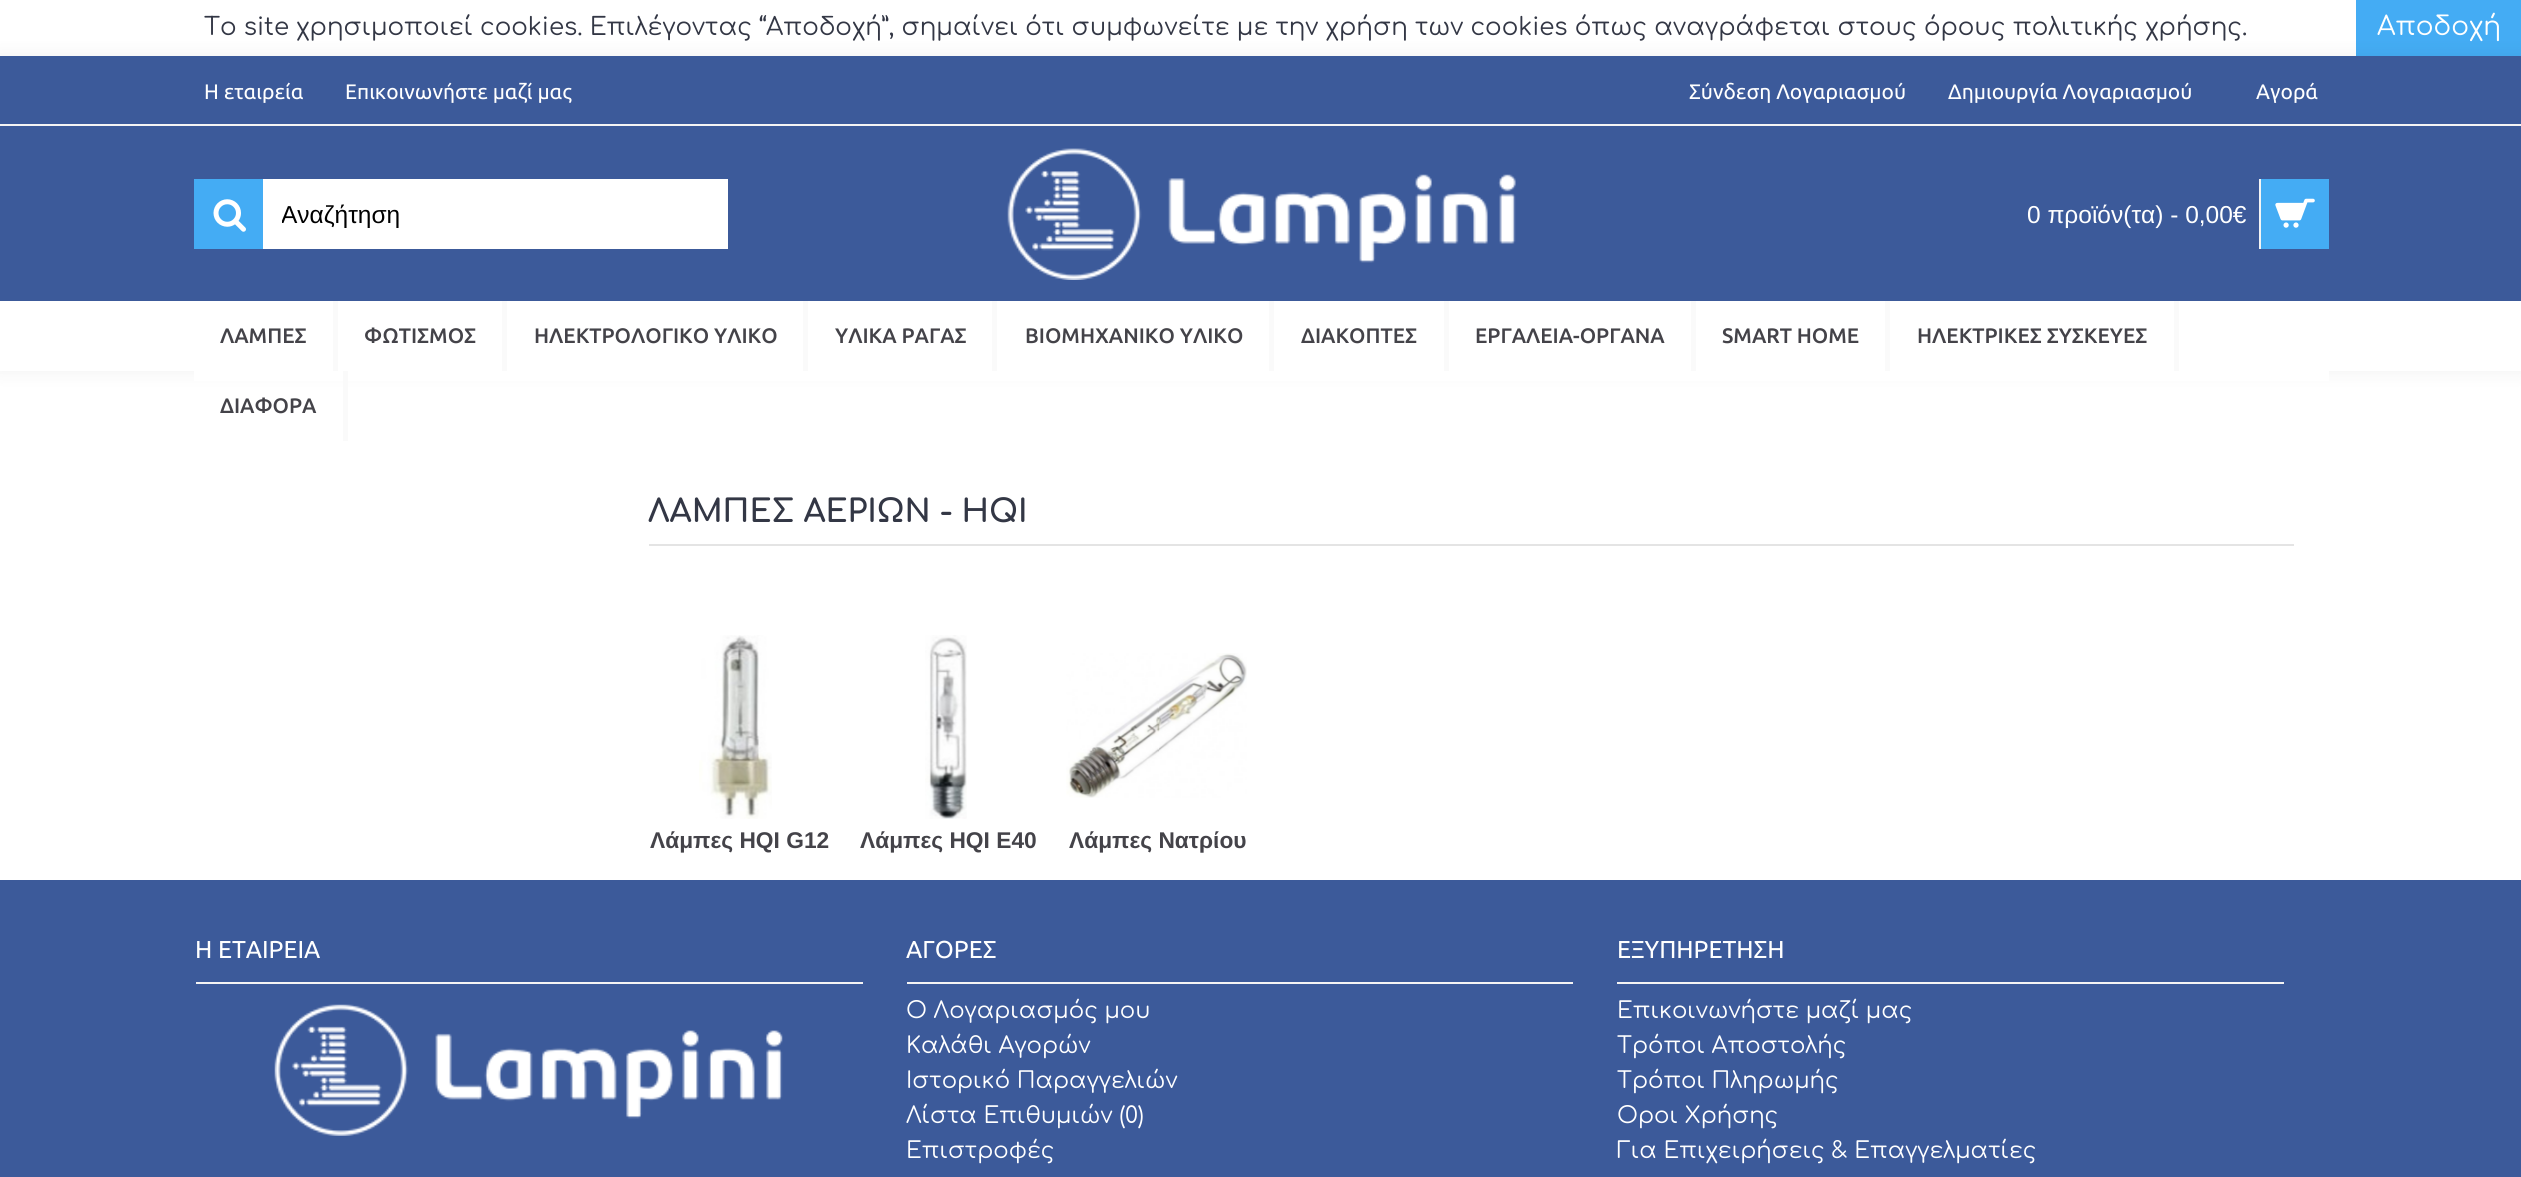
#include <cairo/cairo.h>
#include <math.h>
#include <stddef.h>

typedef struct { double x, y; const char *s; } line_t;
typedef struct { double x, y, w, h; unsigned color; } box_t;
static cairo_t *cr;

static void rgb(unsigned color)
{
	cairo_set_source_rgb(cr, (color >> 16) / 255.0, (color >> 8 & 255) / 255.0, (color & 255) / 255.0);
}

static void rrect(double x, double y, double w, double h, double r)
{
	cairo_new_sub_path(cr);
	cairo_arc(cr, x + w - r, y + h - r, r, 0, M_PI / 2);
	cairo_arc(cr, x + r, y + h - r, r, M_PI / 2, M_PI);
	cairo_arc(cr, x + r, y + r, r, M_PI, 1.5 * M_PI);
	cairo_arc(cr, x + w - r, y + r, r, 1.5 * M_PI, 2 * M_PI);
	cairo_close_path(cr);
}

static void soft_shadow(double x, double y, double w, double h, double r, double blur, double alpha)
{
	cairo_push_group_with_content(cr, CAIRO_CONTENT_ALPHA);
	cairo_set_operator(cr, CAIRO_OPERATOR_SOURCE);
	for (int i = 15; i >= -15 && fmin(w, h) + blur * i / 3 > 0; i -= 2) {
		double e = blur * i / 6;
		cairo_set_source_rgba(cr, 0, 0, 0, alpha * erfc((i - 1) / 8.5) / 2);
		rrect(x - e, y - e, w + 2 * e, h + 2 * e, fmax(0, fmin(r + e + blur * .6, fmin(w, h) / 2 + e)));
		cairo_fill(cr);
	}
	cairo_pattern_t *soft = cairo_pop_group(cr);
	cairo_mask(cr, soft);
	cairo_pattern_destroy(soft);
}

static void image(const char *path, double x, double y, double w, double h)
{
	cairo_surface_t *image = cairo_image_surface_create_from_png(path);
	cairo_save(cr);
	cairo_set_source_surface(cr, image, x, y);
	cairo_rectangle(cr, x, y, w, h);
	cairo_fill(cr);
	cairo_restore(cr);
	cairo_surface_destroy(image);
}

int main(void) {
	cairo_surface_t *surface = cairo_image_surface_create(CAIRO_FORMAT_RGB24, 2521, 1177);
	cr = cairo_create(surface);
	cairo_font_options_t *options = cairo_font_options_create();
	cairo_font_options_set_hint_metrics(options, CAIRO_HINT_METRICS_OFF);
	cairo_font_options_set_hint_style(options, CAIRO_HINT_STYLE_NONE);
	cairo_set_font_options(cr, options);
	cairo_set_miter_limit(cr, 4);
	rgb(0xffffff);
	cairo_paint(cr);
	rgb(0x44acf4);
	cairo_rectangle(cr, 2356, 0, 165, 56);
	cairo_fill(cr);
	rgb(0x000000);
	soft_shadow(-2, 54, 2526, 319, 0, 9, 0.05);
	rgb(0x3c5a9a);
	cairo_rectangle(cr, 0, 56, 2521, 245);
	cairo_fill(cr);
	rgb(0x44acf4);
	cairo_rectangle(cr, 194, 179, 69, 70);
	cairo_fill(cr);
	image("img/1.png", 213, 199, 33, 33);
	rgb(0xffffff);
	cairo_rectangle(cr, 263, 179, 465, 70);
	cairo_fill(cr);
	image("img/2.png", 1007, 148, 509, 132);
	rgb(0x44acf4);
	cairo_rectangle(cr, 2261, 179, 68, 70);
	cairo_fill(cr);
	rgb(0xf4f4f4);
	cairo_rectangle(cr, 2259, 179, 2, 70);
	cairo_fill(cr);
	image("img/3.png", 2275, 198, 40, 30);
	{
		static const box_t items[] = {
			{194, 371, 2135, 10, 0xffffff},
			{0, 301, 2521, 70, 0xffffff},
			{333, 301, 5, 70, 0xfafafa},
			{502, 301, 5, 70, 0xfafafa},
			{803, 301, 5, 70, 0xfafafa},
			{992, 301, 5, 70, 0xfafafa},
			{1269, 301, 5, 70, 0xfafafa},
			{1444, 301, 5, 70, 0xfafafa},
			{1691, 301, 5, 70, 0xfafafa},
			{1885, 301, 5, 70, 0xfafafa},
			{2174, 301, 5, 70, 0xfafafa},
			{343, 371, 5, 70, 0xfafafa},
			{0, 124, 2521, 2, 0xf4f4f4},
			{649, 544, 1645, 2, 0xe4e4e4},
		};
		for (size_t i = 0; i < sizeof items / sizeof *items; i++) {
			rgb(items[i].color);
			cairo_rectangle(cr, items[i].x, items[i].y, items[i].w, items[i].h);
			cairo_fill(cr);
		}
	}
	image("img/4.png", 699, 635, 73, 184);
	image("img/5.png", 925, 635, 42, 184);
	image("img/6.png", 1066, 653, 181, 145);
	rgb(0x3c5a9a);
	cairo_rectangle(cr, 0, 880, 2521, 297);
	cairo_fill(cr);
	rgb(0xf4f4f4);
	cairo_rectangle(cr, 196, 982, 667, 2);
	cairo_fill(cr);
	image("img/7.png", 274, 1004, 509, 132);
	cairo_rectangle(cr, 907, 982, 666, 2);
	cairo_fill(cr);
	cairo_rectangle(cr, 1617, 982, 667, 2);
	cairo_fill(cr);
	cairo_select_font_face(cr, "Comfortaa", CAIRO_FONT_SLANT_NORMAL, CAIRO_FONT_WEIGHT_NORMAL);
	cairo_set_font_size(cr, 24.5);
	rgb(0x333745);
	cairo_move_to(cr, 204, 35);
	cairo_show_text(cr, "Τo site χρησιμοποιεί cookies. Επιλέγοντας “Αποδοχή”, σημαίνει ότι συμφωνείτε με την χρήση των cookies όπως αναγράφεται στους όρους πολιτικής χρήσης.");
	cairo_set_font_size(cr, 26.25);
	rgb(0xffffff);
	cairo_move_to(cr, 2377, 35);
	cairo_show_text(cr, "Αποδοχή");
	cairo_select_font_face(cr, "Ubuntu", CAIRO_FONT_SLANT_NORMAL, CAIRO_FONT_WEIGHT_NORMAL);
	cairo_set_font_size(cr, 21);
	{
		static const line_t items[] = {
			{204, 99, "H εταιρεία"},
			{345, 99, "Επικοινωνήστε μαζί μας"},
			{1689, 99, "Σύνδεση Λογαριασμού"},
			{1948, 99, "Δημιουργία Λογαριασμού"},
			{2256, 99, "Αγορά"},
		};
		for (size_t i = 0; i < sizeof items / sizeof *items; i++) {
			cairo_move_to(cr, items[i].x, items[i].y);
			cairo_show_text(cr, items[i].s);
		}
	}
	cairo_save(cr);
	cairo_rectangle(cr, 282, 200, 446, 28);
	cairo_clip(cr);
	cairo_select_font_face(cr, "Liberation Sans", CAIRO_FONT_SLANT_NORMAL, CAIRO_FONT_WEIGHT_NORMAL);
	cairo_set_font_size(cr, 24.5);
	rgb(0x000000);
	cairo_move_to(cr, 281, 223);
	cairo_show_text(cr, "Αναζήτηση");
	cairo_restore(cr);
	cairo_select_font_face(cr, "Liberation Sans", CAIRO_FONT_SLANT_NORMAL, CAIRO_FONT_WEIGHT_NORMAL);
	cairo_set_font_size(cr, 24.5);
	cairo_move_to(cr, 2027, 223);
	cairo_show_text(cr, "0 προϊόν(τα) - 0,00€");
	cairo_select_font_face(cr, "Ubuntu Medium", CAIRO_FONT_SLANT_NORMAL, CAIRO_FONT_WEIGHT_NORMAL);
	cairo_set_font_size(cr, 21);
	rgb(0x444349);
	{
		static const line_t items[] = {
			{220, 343, "ΛΑΜΠΕΣ"},
			{364, 343, "ΦΩΤΙΣΜΟΣ"},
			{534, 343, "ΗΛΕΚΤΡΟΛΟΓΙΚΟ ΥΛΙΚΟ"},
			{835, 343, "ΥΛΙΚΑ ΡΑΓΑΣ"},
			{1025, 343, "ΒΙΟΜΗΧΑΝΙΚΟ ΥΛΙΚΟ"},
			{1301, 343, "ΔΙΑΚΟΠΤΕΣ"},
			{1475, 343, "ΕΡΓΑΛΕΙΑ-ΟΡΓΑΝΑ"},
			{1722, 343, "SMART HOME"},
			{1917, 343, "ΗΛΕΚΤΡΙΚΕΣ ΣΥΣΚΕΥΕΣ"},
			{220, 413, "ΔΙΑΦΟΡΑ"},
		};
		for (size_t i = 0; i < sizeof items / sizeof *items; i++) {
			cairo_move_to(cr, items[i].x, items[i].y);
			cairo_show_text(cr, items[i].s);
		}
	}
	cairo_select_font_face(cr, "Comfortaa", CAIRO_FONT_SLANT_NORMAL, CAIRO_FONT_WEIGHT_BOLD);
	cairo_set_font_size(cr, 31.5);
	rgb(0x333745);
	cairo_move_to(cr, 648, 522);
	cairo_show_text(cr, "ΛΑΜΠΕΣ ΑΕΡΙΩΝ - HQI");
	cairo_select_font_face(cr, "Liberation Sans", CAIRO_FONT_SLANT_NORMAL, CAIRO_FONT_WEIGHT_BOLD);
	cairo_set_font_size(cr, 22.75);
	rgb(0x444349);
	{
		static const line_t items[] = {
			{650, 848, "Λάμπες HQI G12"},
			{860, 848, "Λάμπες HQI E40"},
			{1069, 848, "Λάμπες Νατρίου"},
		};
		for (size_t i = 0; i < sizeof items / sizeof *items; i++) {
			cairo_move_to(cr, items[i].x, items[i].y);
			cairo_show_text(cr, items[i].s);
		}
	}
	cairo_select_font_face(cr, "Ubuntu", CAIRO_FONT_SLANT_NORMAL, CAIRO_FONT_WEIGHT_NORMAL);
	cairo_set_font_size(cr, 24.5);
	rgb(0xffffff);
	cairo_move_to(cr, 195, 958);
	cairo_show_text(cr, "Η ΕΤΑΙΡΕΙΑ");
	cairo_move_to(cr, 906, 958);
	cairo_show_text(cr, "ΑΓΟΡΕΣ");
	cairo_select_font_face(cr, "Comfortaa", CAIRO_FONT_SLANT_NORMAL, CAIRO_FONT_WEIGHT_NORMAL);
	cairo_set_font_size(cr, 22.75);
	{
		static const line_t items[] = {
			{906, 1018, "O Λογαριασμός μου"},
			{906, 1053, "Καλάθι Αγορών"},
			{906, 1088, "Ιστορικό Παραγγελιών"},
			{906, 1123, "Λίστα Επιθυμιών (0)"},
			{906, 1158, "Επιστροφές"},
		};
		for (size_t i = 0; i < sizeof items / sizeof *items; i++) {
			cairo_move_to(cr, items[i].x, items[i].y);
			cairo_show_text(cr, items[i].s);
		}
	}
	cairo_select_font_face(cr, "Ubuntu", CAIRO_FONT_SLANT_NORMAL, CAIRO_FONT_WEIGHT_NORMAL);
	cairo_set_font_size(cr, 24.5);
	cairo_move_to(cr, 1617, 958);
	cairo_show_text(cr, "ΕΞΥΠΗΡΕΤΗΣΗ");
	cairo_select_font_face(cr, "Comfortaa", CAIRO_FONT_SLANT_NORMAL, CAIRO_FONT_WEIGHT_NORMAL);
	cairo_set_font_size(cr, 22.75);
	{
		static const line_t items[] = {
			{1617, 1018, "Επικοινωνήστε μαζί μας"},
			{1617, 1053, "Τρόποι Αποστολής"},
			{1617, 1088, "Τρόποι Πληρωμής"},
			{1617, 1123, "Οροι Χρήσης"},
			{1617, 1158, "Για Επιχειρήσεις & Επαγγελματίες"},
		};
		for (size_t i = 0; i < sizeof items / sizeof *items; i++) {
			cairo_move_to(cr, items[i].x, items[i].y);
			cairo_show_text(cr, items[i].s);
		}
	}
	cairo_surface_write_to_png(surface, "page.png");
	cairo_font_options_destroy(options);
	cairo_destroy(cr);
	cairo_surface_destroy(surface);
	return 0;
}
